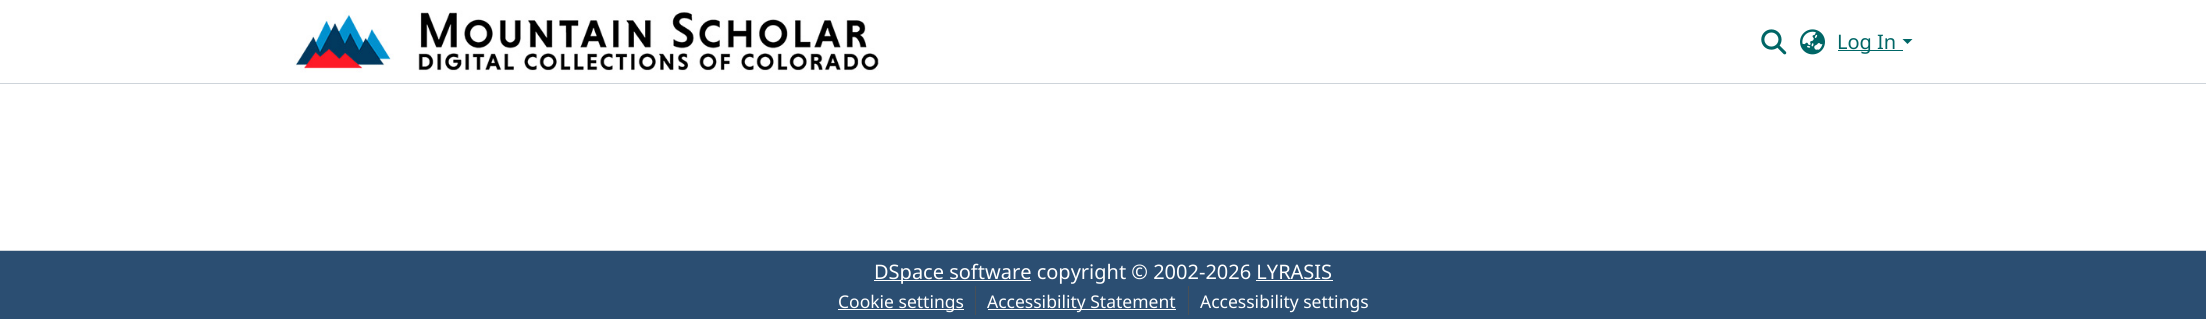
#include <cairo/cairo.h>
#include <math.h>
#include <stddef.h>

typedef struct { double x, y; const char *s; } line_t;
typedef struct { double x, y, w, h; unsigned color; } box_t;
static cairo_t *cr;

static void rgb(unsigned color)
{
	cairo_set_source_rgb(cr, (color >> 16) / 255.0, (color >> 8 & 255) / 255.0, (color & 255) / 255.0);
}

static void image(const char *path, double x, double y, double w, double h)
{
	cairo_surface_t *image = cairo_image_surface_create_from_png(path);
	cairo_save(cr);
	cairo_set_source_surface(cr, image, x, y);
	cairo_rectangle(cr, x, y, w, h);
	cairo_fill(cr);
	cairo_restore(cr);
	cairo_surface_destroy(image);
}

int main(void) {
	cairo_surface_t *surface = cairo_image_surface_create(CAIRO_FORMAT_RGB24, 2206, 319);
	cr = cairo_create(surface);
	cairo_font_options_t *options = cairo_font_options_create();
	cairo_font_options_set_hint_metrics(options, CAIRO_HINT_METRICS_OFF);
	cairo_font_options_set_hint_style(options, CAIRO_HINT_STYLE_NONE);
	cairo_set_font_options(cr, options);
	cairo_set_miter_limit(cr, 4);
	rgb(0xffffff);
	cairo_paint(cr);
	rgb(0xced4da);
	cairo_rectangle(cr, 0, 83, 2206, 1);
	cairo_fill(cr);
	image("img/1.png", 294, 10, 585, 63);
	image("img/2.png", 1761, 29, 26, 26);
	image("img/3.png", 1800, 29, 25, 26);
	rgb(0x006666);
	cairo_rectangle(cr, 1838, 50, 65, 1);
	cairo_fill(cr);
	cairo_new_path(cr);
	cairo_move_to(cr, 1902.5, 39);
	cairo_line_to(cr, 1912.5, 39);
	cairo_line_to(cr, 1907.5, 44);
	cairo_close_path(cr);
	cairo_fill(cr);
	{
		static const box_t items[] = {
			{0, 251, 2206, 68, 0x2b4e72},
			{0, 250, 2206, 1, 0xced4da},
			{874, 280, 157, 1, 0xffffff},
			{1256, 280, 77, 1, 0xffffff},
			{838, 309, 126, 1, 0xffffff},
			{975, 286, 1, 29, 0x495057},
			{988, 309, 188, 1, 0xffffff},
			{1188, 286, 1, 29, 0x495057},
		};
		for (size_t i = 0; i < sizeof items / sizeof *items; i++) {
			rgb(items[i].color);
			cairo_rectangle(cr, items[i].x, items[i].y, items[i].w, items[i].h);
			cairo_fill(cr);
		}
	}
	cairo_select_font_face(cr, "Noto Sans", CAIRO_FONT_SLANT_NORMAL, CAIRO_FONT_WEIGHT_NORMAL);
	cairo_set_font_size(cr, 20);
	rgb(0x006666);
	cairo_move_to(cr, 1837, 49);
	cairo_show_text(cr, "Log In");
	rgb(0xffffff);
	cairo_move_to(cr, 874, 279);
	cairo_show_text(cr, "DSpace software copyright © 2002-2026 LYRASIS");
	cairo_set_font_size(cr, 17.5);
	{
		static const line_t items[] = {
			{838, 308, "Cookie settings"},
			{987, 308, "Accessibility Statement"},
			{1200, 308, "Accessibility settings"},
		};
		for (size_t i = 0; i < sizeof items / sizeof *items; i++) {
			cairo_move_to(cr, items[i].x, items[i].y);
			cairo_show_text(cr, items[i].s);
		}
	}
	cairo_surface_write_to_png(surface, "page.png");
	cairo_font_options_destroy(options);
	cairo_destroy(cr);
	cairo_surface_destroy(surface);
	return 0;
}
